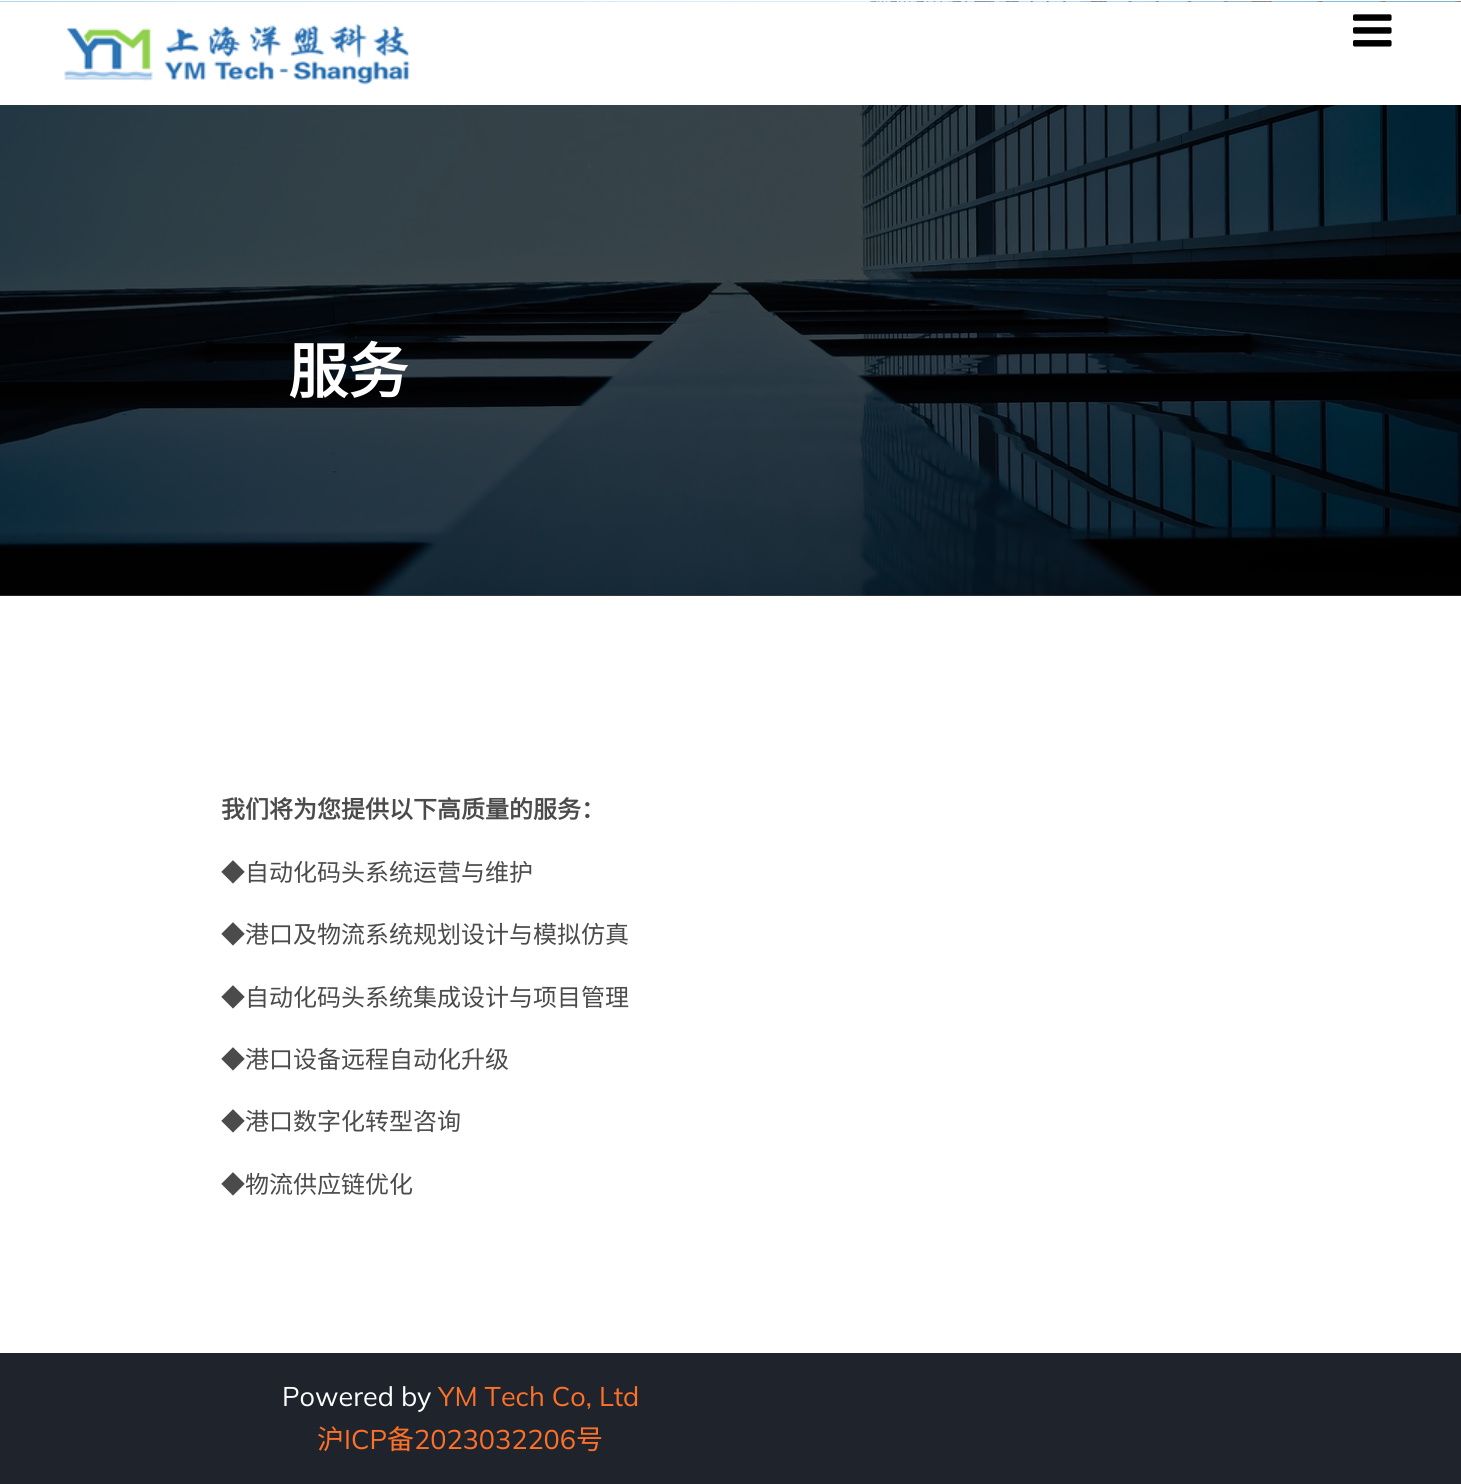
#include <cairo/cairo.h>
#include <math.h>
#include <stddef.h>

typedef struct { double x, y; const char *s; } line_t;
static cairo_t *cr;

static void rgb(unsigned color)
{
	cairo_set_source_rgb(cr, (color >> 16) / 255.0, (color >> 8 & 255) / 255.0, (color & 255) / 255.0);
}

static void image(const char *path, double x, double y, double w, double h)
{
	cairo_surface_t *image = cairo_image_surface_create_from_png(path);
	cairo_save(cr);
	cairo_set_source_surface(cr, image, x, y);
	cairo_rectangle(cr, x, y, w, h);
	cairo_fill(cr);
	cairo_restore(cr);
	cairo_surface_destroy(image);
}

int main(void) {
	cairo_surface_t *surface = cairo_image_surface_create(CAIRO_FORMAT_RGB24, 1461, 1484);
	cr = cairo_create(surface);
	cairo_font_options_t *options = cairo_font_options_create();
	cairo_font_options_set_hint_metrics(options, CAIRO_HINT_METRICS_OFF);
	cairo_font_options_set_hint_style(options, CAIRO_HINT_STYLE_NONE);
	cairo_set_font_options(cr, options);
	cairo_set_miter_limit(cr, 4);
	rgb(0xffffff);
	cairo_paint(cr);
	rgb(0x4d4d4d);
	cairo_rectangle(cr, 0, 595, 1461, 1);
	cairo_fill(cr);
	image("img/3.png", 0, 1, 1461, 595);
	rgb(0xffffff);
	cairo_rectangle(cr, 0, 2, 1461, 103);
	cairo_fill(cr);
	image("img/1.png", 64, 23, 346, 62);
	image("img/2.png", 1353, 14, 39, 33);
	rgb(0x1f242c);
	cairo_rectangle(cr, 0, 1353, 1461, 131);
	cairo_fill(cr);
	cairo_select_font_face(cr, "Noto Sans CJK SC", CAIRO_FONT_SLANT_NORMAL, CAIRO_FONT_WEIGHT_BOLD);
	cairo_set_font_size(cr, 60);
	rgb(0xffffff);
	cairo_move_to(cr, 288, 393);
	cairo_show_text(cr, "服务");
	cairo_set_font_size(cr, 24);
	rgb(0x4b4b4b);
	cairo_move_to(cr, 221, 818);
	cairo_show_text(cr, "我们将为您提供以下高质量的服务：");
	cairo_select_font_face(cr, "Noto Sans CJK SC", CAIRO_FONT_SLANT_NORMAL, CAIRO_FONT_WEIGHT_NORMAL);
	{
		static const line_t items[] = {
			{221, 881, "◆自动化码头系统运营与维护"},
			{221, 943, "◆港口及物流系统规划设计与模拟仿真"},
			{221, 1006, "◆自动化码头系统集成设计与项目管理"},
			{221, 1068, "◆港口设备远程自动化升级"},
			{221, 1130, "◆港口数字化转型咨询"},
			{221, 1193, "◆物流供应链优化"},
		};
		for (size_t i = 0; i < sizeof items / sizeof *items; i++) {
			cairo_move_to(cr, items[i].x, items[i].y);
			cairo_show_text(cr, items[i].s);
		}
	}
	cairo_select_font_face(cr, "Mulish", CAIRO_FONT_SLANT_NORMAL, CAIRO_FONT_WEIGHT_NORMAL);
	cairo_set_font_size(cr, 27);
	rgb(0xffffff);
	cairo_move_to(cr, 282, 1406);
	cairo_show_text(cr, "Powered by");
	rgb(0xff7029);
	cairo_move_to(cr, 438, 1406);
	cairo_show_text(cr, "YM Tech Co, Ltd");
	cairo_select_font_face(cr, "Noto Sans CJK SC", CAIRO_FONT_SLANT_NORMAL, CAIRO_FONT_WEIGHT_NORMAL);
	cairo_move_to(cr, 317, 1449);
	cairo_show_text(cr, "沪");
	cairo_select_font_face(cr, "Mulish", CAIRO_FONT_SLANT_NORMAL, CAIRO_FONT_WEIGHT_NORMAL);
	cairo_move_to(cr, 344, 1449);
	cairo_show_text(cr, "ICP");
	cairo_select_font_face(cr, "Noto Sans CJK SC", CAIRO_FONT_SLANT_NORMAL, CAIRO_FONT_WEIGHT_NORMAL);
	cairo_move_to(cr, 387, 1449);
	cairo_show_text(cr, "备");
	cairo_select_font_face(cr, "Mulish", CAIRO_FONT_SLANT_NORMAL, CAIRO_FONT_WEIGHT_NORMAL);
	cairo_move_to(cr, 414, 1449);
	cairo_show_text(cr, "2023032206");
	cairo_select_font_face(cr, "Noto Sans CJK SC", CAIRO_FONT_SLANT_NORMAL, CAIRO_FONT_WEIGHT_NORMAL);
	cairo_move_to(cr, 576, 1449);
	cairo_show_text(cr, "号");
	cairo_surface_write_to_png(surface, "page.png");
	cairo_font_options_destroy(options);
	cairo_destroy(cr);
	cairo_surface_destroy(surface);
	return 0;
}
